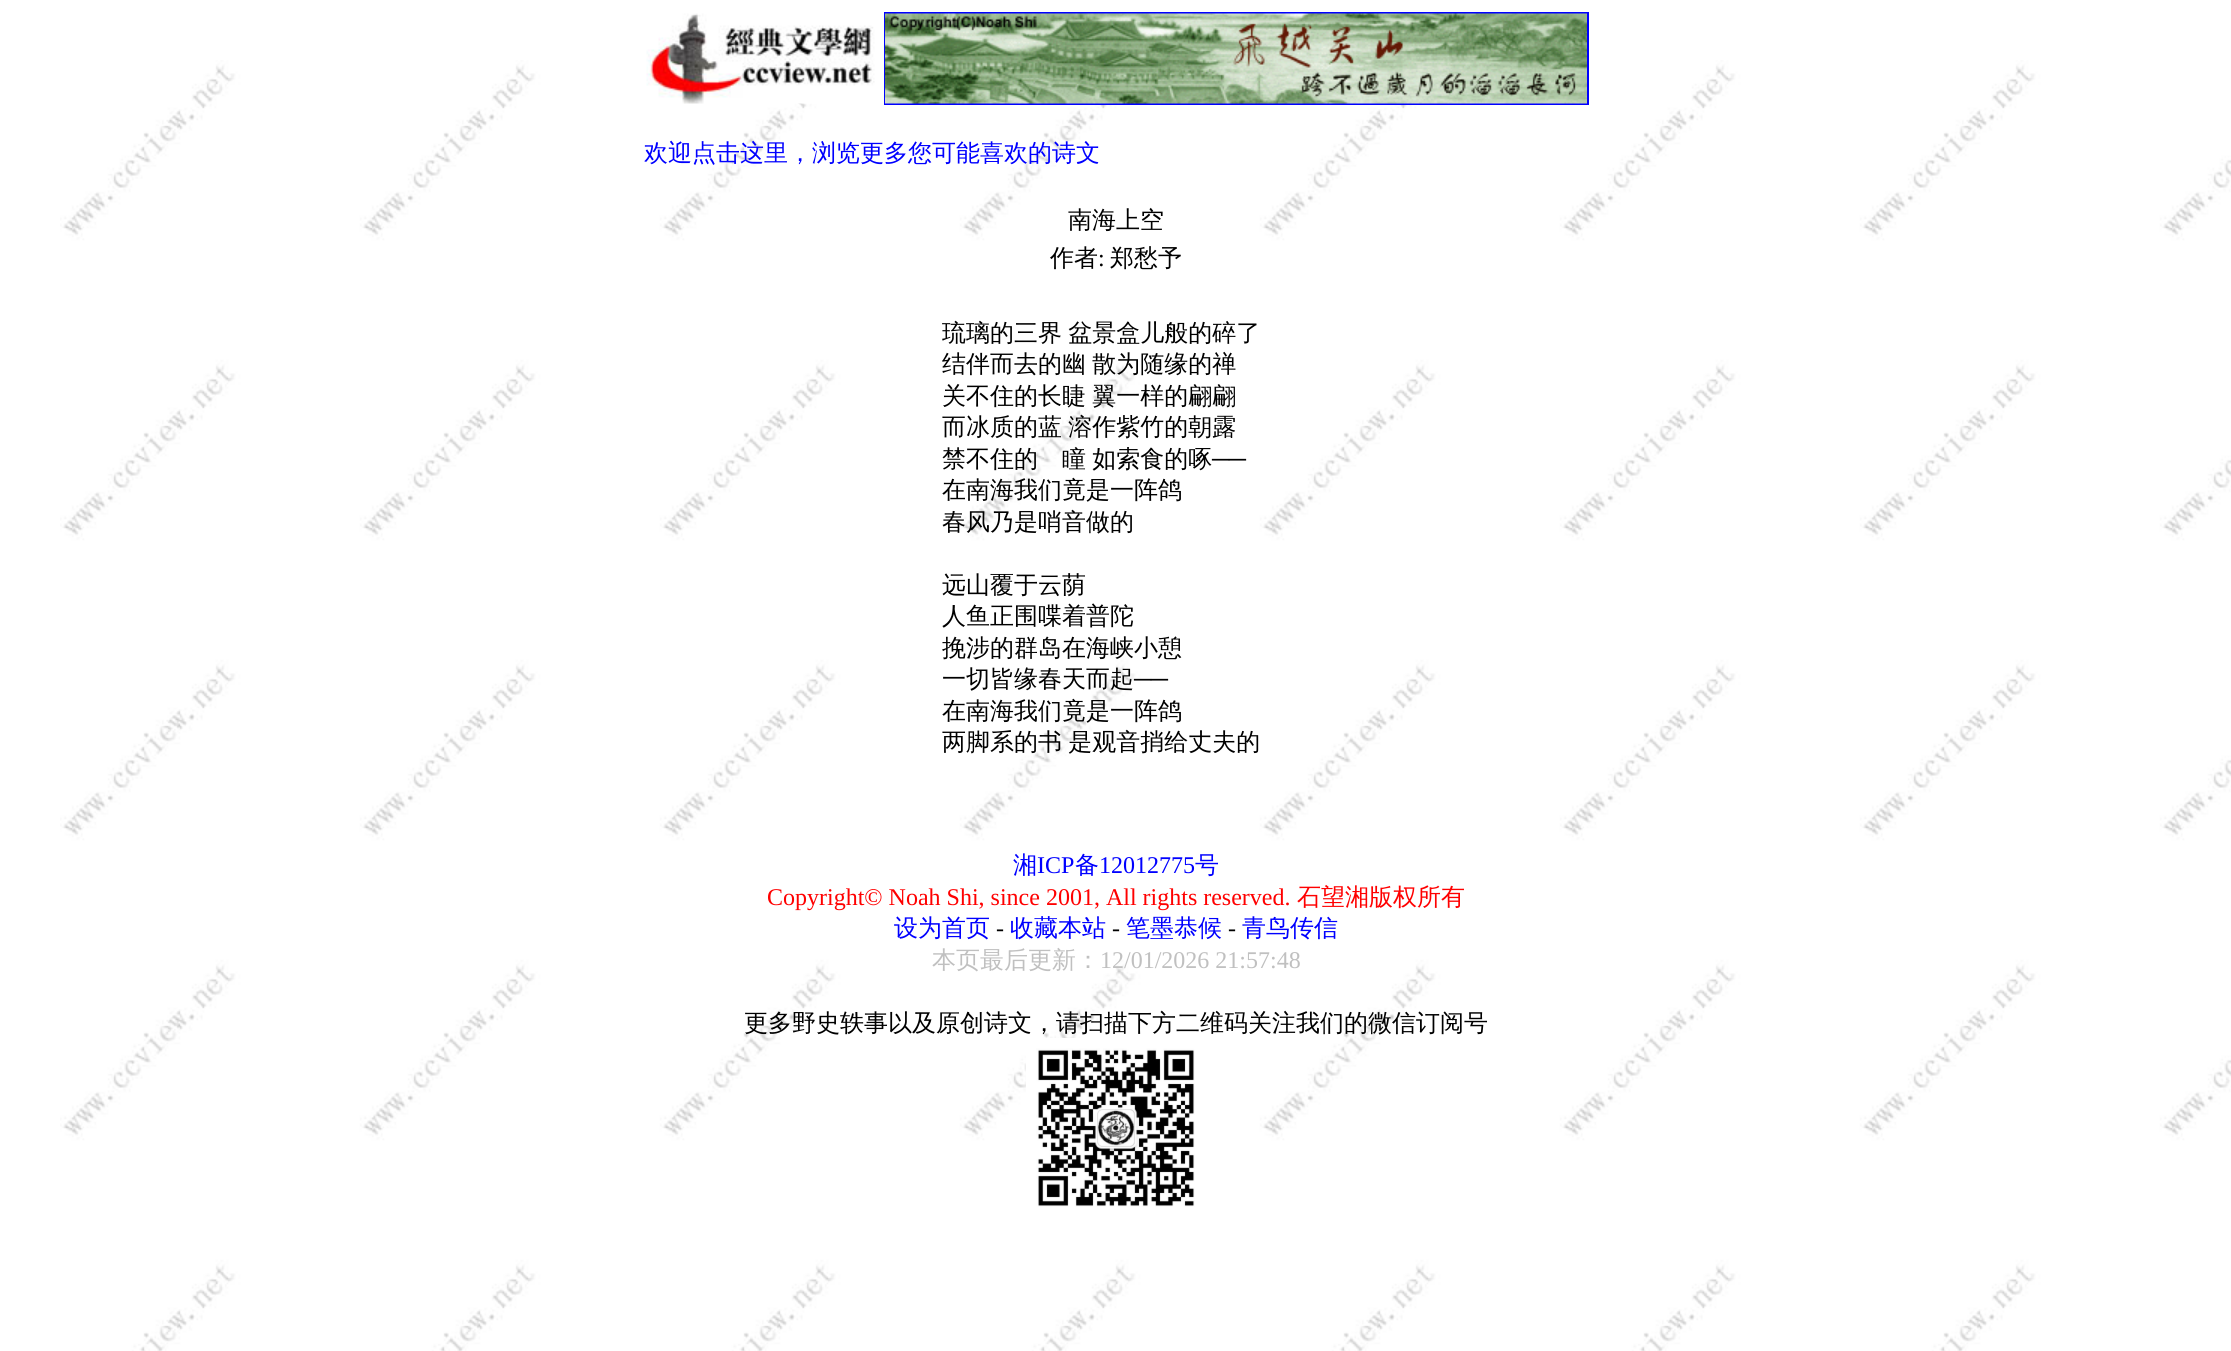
#include <cairo/cairo.h>
#include <math.h>
#include <stddef.h>

typedef struct { double x, y; const char *s; } line_t;
static cairo_t *cr;

static void rgb(unsigned color)
{
	cairo_set_source_rgb(cr, (color >> 16) / 255.0, (color >> 8 & 255) / 255.0, (color & 255) / 255.0);
}

static void tracked(double x, double y, const char *s, double letter, double word)
{
	cairo_move_to(cr, x, y);
	while (*s) {
		char ch[5] = {0};
		int n = 0;
		do ch[n++] = *s++; while ((*s & 0xC0) == 0x80);
		cairo_show_text(cr, ch);
		cairo_rel_move_to(cr, letter + word * (*ch == ' '), 0);
	}
}

static void image(const char *path, double x, double y, double w, double h)
{
	cairo_surface_t *image = cairo_image_surface_create_from_png(path);
	cairo_save(cr);
	cairo_set_source_surface(cr, image, x, y);
	cairo_rectangle(cr, x, y, w, h);
	cairo_fill(cr);
	cairo_restore(cr);
	cairo_surface_destroy(image);
}

int main(void) {
	cairo_surface_t *surface = cairo_image_surface_create(CAIRO_FORMAT_RGB24, 2231, 1351);
	cr = cairo_create(surface);
	cairo_font_options_t *options = cairo_font_options_create();
	cairo_font_options_set_hint_metrics(options, CAIRO_HINT_METRICS_OFF);
	cairo_font_options_set_hint_style(options, CAIRO_HINT_STYLE_NONE);
	cairo_set_font_options(cr, options);
	cairo_set_miter_limit(cr, 4);
	rgb(0xffffff);
	cairo_paint(cr);
	image("img/1.png", 60, 60, 2171, 1291);
	image("img/2.png", 646, 13, 229, 91);
	cairo_rectangle(cr, 885, 13, 703, 91);
	rgb(0x0000ff);
	cairo_stroke(cr);
	image("img/3.png", 885, 13, 702, 91);
	image("img/4.png", 1026, 1038, 169, 169);
	cairo_select_font_face(cr, "WenQuanYi Zen Hei Medium", CAIRO_FONT_SLANT_NORMAL, CAIRO_FONT_WEIGHT_NORMAL);
	cairo_set_font_size(cr, 24);
	cairo_move_to(cr, 644, 161);
	cairo_show_text(cr, "欢迎点击这里，浏览更多您可能喜欢的诗文");
	rgb(0x000000);
	cairo_move_to(cr, 1068, 228);
	cairo_show_text(cr, "南海上空");
	cairo_move_to(cr, 1050, 266);
	cairo_show_text(cr, "作者");
	cairo_select_font_face(cr, "Liberation Serif", CAIRO_FONT_SLANT_NORMAL, CAIRO_FONT_WEIGHT_NORMAL);
	cairo_move_to(cr, 1098, 266);
	cairo_show_text(cr, ":");
	cairo_select_font_face(cr, "WenQuanYi Zen Hei Medium", CAIRO_FONT_SLANT_NORMAL, CAIRO_FONT_WEIGHT_NORMAL);
	cairo_move_to(cr, 1110, 266);
	cairo_show_text(cr, "郑愁予");
	{
		static const line_t items[] = {
			{942, 341, "琉璃的三界 盆景盒儿般的碎了"},
			{942, 372, "结伴而去的幽 散为随缘的禅"},
			{942, 404, "关不住的长睫 翼一样的翩翩"},
			{942, 435, "而冰质的蓝 溶作紫竹的朝露"},
			{942, 467, "禁不住的　瞳 如索食的啄"},
		};
		for (size_t i = 0; i < sizeof items / sizeof *items; i++) {
			tracked(items[i].x, items[i].y, items[i].s, 0, -1);
		}
	}
	cairo_select_font_face(cr, "Liberation Serif", CAIRO_FONT_SLANT_NORMAL, CAIRO_FONT_WEIGHT_NORMAL);
	cairo_move_to(cr, 1212, 467);
	cairo_show_text(cr, "──");
	cairo_select_font_face(cr, "WenQuanYi Zen Hei Medium", CAIRO_FONT_SLANT_NORMAL, CAIRO_FONT_WEIGHT_NORMAL);
	{
		static const line_t items[] = {
			{942, 498, "在南海我们竟是一阵鸽"},
			{942, 530, "春风乃是哨音做的"},
			{942, 593, "远山覆于云荫"},
			{942, 624, "人鱼正围喋着普陀"},
			{942, 656, "挽涉的群岛在海峡小憩"},
			{942, 687, "一切皆缘春天而起"},
		};
		for (size_t i = 0; i < sizeof items / sizeof *items; i++) {
			cairo_move_to(cr, items[i].x, items[i].y);
			cairo_show_text(cr, items[i].s);
		}
	}
	cairo_select_font_face(cr, "Liberation Serif", CAIRO_FONT_SLANT_NORMAL, CAIRO_FONT_WEIGHT_NORMAL);
	cairo_move_to(cr, 1134, 687);
	cairo_show_text(cr, "──");
	cairo_select_font_face(cr, "WenQuanYi Zen Hei Medium", CAIRO_FONT_SLANT_NORMAL, CAIRO_FONT_WEIGHT_NORMAL);
	cairo_move_to(cr, 942, 719);
	cairo_show_text(cr, "在南海我们竟是一阵鸽");
	tracked(942, 750, "两脚系的书 是观音捎给丈夫的", 0, -1);
	rgb(0x0000ff);
	cairo_move_to(cr, 1013, 873);
	cairo_show_text(cr, "湘");
	cairo_select_font_face(cr, "Liberation Serif", CAIRO_FONT_SLANT_NORMAL, CAIRO_FONT_WEIGHT_NORMAL);
	cairo_move_to(cr, 1037, 873);
	cairo_show_text(cr, "ICP");
	cairo_select_font_face(cr, "WenQuanYi Zen Hei Medium", CAIRO_FONT_SLANT_NORMAL, CAIRO_FONT_WEIGHT_NORMAL);
	cairo_move_to(cr, 1075, 873);
	cairo_show_text(cr, "备");
	cairo_select_font_face(cr, "Liberation Serif", CAIRO_FONT_SLANT_NORMAL, CAIRO_FONT_WEIGHT_NORMAL);
	cairo_move_to(cr, 1099, 873);
	cairo_show_text(cr, "12012775");
	cairo_select_font_face(cr, "WenQuanYi Zen Hei Medium", CAIRO_FONT_SLANT_NORMAL, CAIRO_FONT_WEIGHT_NORMAL);
	cairo_move_to(cr, 1195, 873);
	cairo_show_text(cr, "号");
	cairo_select_font_face(cr, "Liberation Serif", CAIRO_FONT_SLANT_NORMAL, CAIRO_FONT_WEIGHT_NORMAL);
	rgb(0xff0000);
	cairo_move_to(cr, 767, 905);
	cairo_show_text(cr, "Copyright© Noah Shi, since 2001, All rights reserved.");
	cairo_select_font_face(cr, "WenQuanYi Zen Hei Medium", CAIRO_FONT_SLANT_NORMAL, CAIRO_FONT_WEIGHT_NORMAL);
	cairo_move_to(cr, 1297, 905);
	cairo_show_text(cr, "石望湘版权所有");
	rgb(0x0000ff);
	cairo_move_to(cr, 894, 936);
	cairo_show_text(cr, "设为首页");
	cairo_select_font_face(cr, "Liberation Serif", CAIRO_FONT_SLANT_NORMAL, CAIRO_FONT_WEIGHT_NORMAL);
	rgb(0x000000);
	cairo_move_to(cr, 996, 936);
	cairo_show_text(cr, "-");
	cairo_select_font_face(cr, "WenQuanYi Zen Hei Medium", CAIRO_FONT_SLANT_NORMAL, CAIRO_FONT_WEIGHT_NORMAL);
	rgb(0x0000ff);
	cairo_move_to(cr, 1010, 936);
	cairo_show_text(cr, "收藏本站");
	cairo_select_font_face(cr, "Liberation Serif", CAIRO_FONT_SLANT_NORMAL, CAIRO_FONT_WEIGHT_NORMAL);
	rgb(0x000000);
	cairo_move_to(cr, 1112, 936);
	cairo_show_text(cr, "-");
	cairo_select_font_face(cr, "WenQuanYi Zen Hei Medium", CAIRO_FONT_SLANT_NORMAL, CAIRO_FONT_WEIGHT_NORMAL);
	rgb(0x0000ff);
	cairo_move_to(cr, 1126, 936);
	cairo_show_text(cr, "笔墨恭候");
	cairo_select_font_face(cr, "Liberation Serif", CAIRO_FONT_SLANT_NORMAL, CAIRO_FONT_WEIGHT_NORMAL);
	rgb(0x000000);
	cairo_move_to(cr, 1228, 936);
	cairo_show_text(cr, "-");
	cairo_select_font_face(cr, "WenQuanYi Zen Hei Medium", CAIRO_FONT_SLANT_NORMAL, CAIRO_FONT_WEIGHT_NORMAL);
	rgb(0x0000ff);
	cairo_move_to(cr, 1242, 936);
	cairo_show_text(cr, "青鸟传信");
	rgb(0xc0c0c0);
	cairo_move_to(cr, 932, 968);
	cairo_show_text(cr, "本页最后更新：");
	cairo_select_font_face(cr, "Liberation Serif", CAIRO_FONT_SLANT_NORMAL, CAIRO_FONT_WEIGHT_NORMAL);
	cairo_move_to(cr, 1100, 968);
	cairo_show_text(cr, "12/01/2026 21:57:48");
	cairo_select_font_face(cr, "WenQuanYi Zen Hei Medium", CAIRO_FONT_SLANT_NORMAL, CAIRO_FONT_WEIGHT_NORMAL);
	rgb(0x000000);
	cairo_move_to(cr, 744, 1031);
	cairo_show_text(cr, "更多野史轶事以及原创诗文，请扫描下方二维码关注我们的微信订阅号");
	cairo_surface_write_to_png(surface, "page.png");
	cairo_font_options_destroy(options);
	cairo_destroy(cr);
	cairo_surface_destroy(surface);
	return 0;
}
